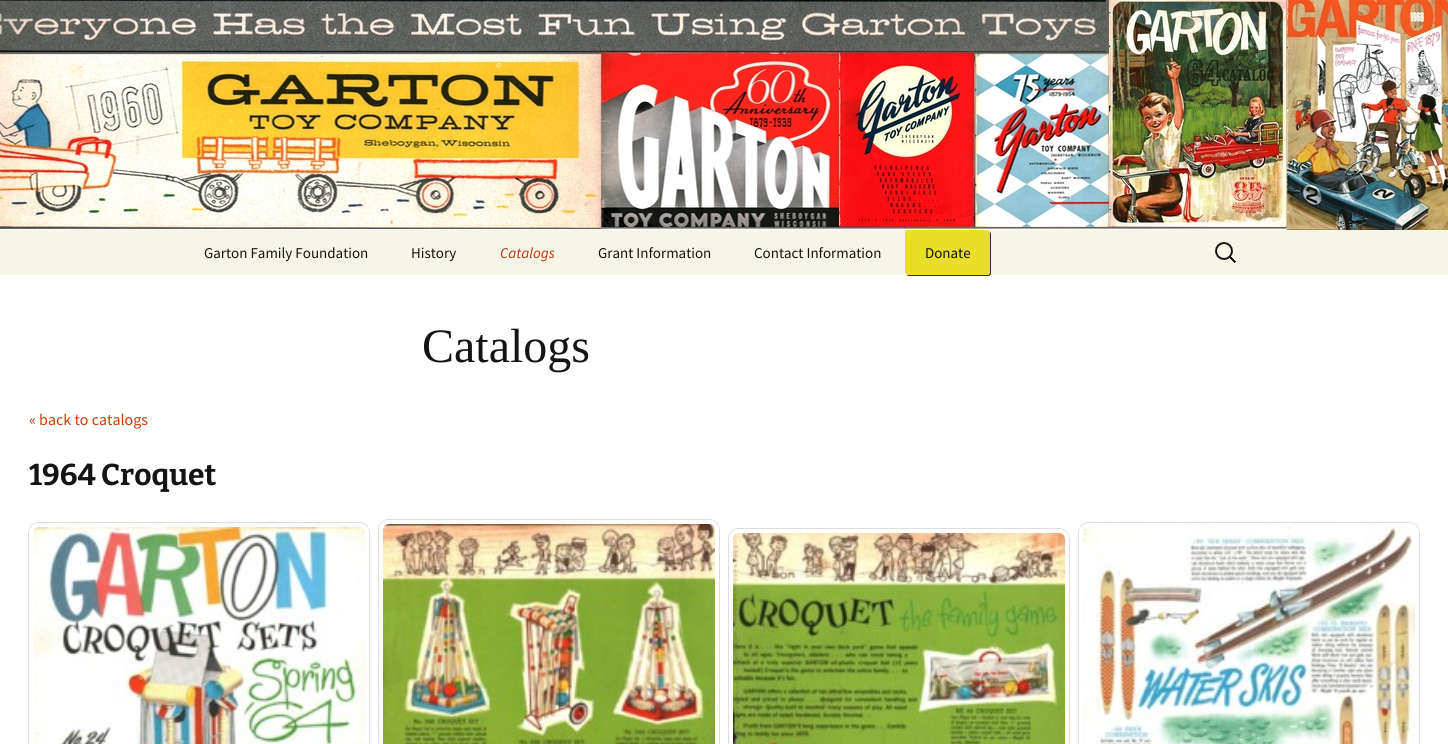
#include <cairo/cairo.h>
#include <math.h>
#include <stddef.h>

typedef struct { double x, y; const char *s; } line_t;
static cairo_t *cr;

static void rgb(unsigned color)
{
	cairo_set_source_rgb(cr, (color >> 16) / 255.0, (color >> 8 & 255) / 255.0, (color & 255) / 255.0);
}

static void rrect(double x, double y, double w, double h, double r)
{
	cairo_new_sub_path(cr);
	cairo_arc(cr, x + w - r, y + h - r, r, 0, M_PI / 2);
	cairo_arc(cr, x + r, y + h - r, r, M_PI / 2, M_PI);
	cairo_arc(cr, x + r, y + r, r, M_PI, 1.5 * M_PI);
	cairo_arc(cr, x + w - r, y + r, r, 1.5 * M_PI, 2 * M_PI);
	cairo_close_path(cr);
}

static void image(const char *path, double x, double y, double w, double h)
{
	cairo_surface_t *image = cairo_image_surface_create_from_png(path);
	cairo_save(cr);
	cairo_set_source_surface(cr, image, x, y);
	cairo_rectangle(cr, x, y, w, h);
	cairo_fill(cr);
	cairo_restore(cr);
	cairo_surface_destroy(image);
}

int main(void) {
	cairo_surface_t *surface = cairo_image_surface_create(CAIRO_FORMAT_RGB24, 1448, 744);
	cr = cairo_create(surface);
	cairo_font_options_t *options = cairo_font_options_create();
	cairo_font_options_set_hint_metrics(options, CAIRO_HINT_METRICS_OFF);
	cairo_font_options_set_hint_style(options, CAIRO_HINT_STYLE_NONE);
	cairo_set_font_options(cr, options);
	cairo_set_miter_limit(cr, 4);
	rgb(0xffffff);
	cairo_paint(cr);
	image("img/1.png", 0, 0, 1448, 230);
	rgb(0xf7f5e7);
	cairo_rectangle(cr, 0, 230, 1448, 45);
	cairo_fill(cr);
	rgb(0x2f2f2f);
	cairo_new_path(cr);
	cairo_move_to(cr, 906, 275);
	cairo_curve_to(cr, 907, 275, 908, 276, 909, 276);
	cairo_line_to(cr, 988, 276);
	cairo_curve_to(cr, 990, 276, 991, 275, 991, 273);
	cairo_line_to(cr, 991, 234);
	cairo_curve_to(cr, 991, 233, 990, 232, 990, 231);
	cairo_line_to(cr, 990, 233);
	cairo_line_to(cr, 990, 272);
	cairo_curve_to(cr, 990, 274, 989, 275, 987, 275);
	cairo_line_to(cr, 908, 275);
	cairo_close_path(cr);
	cairo_fill(cr);
	rgb(0xebde28);
	rrect(905, 230, 85, 45, 3);
	cairo_fill(cr);
	image("img/2.png", 1215, 242, 21, 21);
	rrect(28.5, 522.5, 341, 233, 10.5);
	rgb(0xdddddd);
	cairo_set_line_width(cr, 1);
	cairo_stroke(cr);
	rrect(31, 525, 336, 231, 8);
	rgb(0xffffff);
	cairo_set_line_width(cr, 4);
	cairo_stroke(cr);
	image("img/3.png", 33, 527, 332, 217);
	rrect(378.5, 519.5, 341, 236, 10.5);
	rgb(0xdddddd);
	cairo_set_line_width(cr, 1);
	cairo_stroke(cr);
	rrect(381, 522, 336, 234, 8);
	rgb(0xffffff);
	cairo_set_line_width(cr, 4);
	cairo_stroke(cr);
	image("img/4.png", 383, 524, 332, 220);
	rrect(728.5, 528.5, 341, 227, 10.5);
	rgb(0xdddddd);
	cairo_set_line_width(cr, 1);
	cairo_stroke(cr);
	rrect(731, 531, 336, 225, 8);
	rgb(0xffffff);
	cairo_set_line_width(cr, 4);
	cairo_stroke(cr);
	image("img/5.png", 733, 533, 332, 211);
	rrect(1078.5, 522.5, 341, 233, 10.5);
	rgb(0xdddddd);
	cairo_set_line_width(cr, 1);
	cairo_stroke(cr);
	rrect(1081, 525, 336, 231, 8);
	rgb(0xffffff);
	cairo_set_line_width(cr, 4);
	cairo_stroke(cr);
	image("img/6.png", 1083, 527, 332, 217);
	cairo_select_font_face(cr, "Source Sans Pro", CAIRO_FONT_SLANT_NORMAL, CAIRO_FONT_WEIGHT_NORMAL);
	cairo_set_font_size(cr, 15);
	rgb(0x141412);
	cairo_move_to(cr, 204, 258);
	cairo_show_text(cr, "Garton Family Foundation");
	cairo_move_to(cr, 411, 258);
	cairo_show_text(cr, "History");
	cairo_select_font_face(cr, "Source Sans Pro", CAIRO_FONT_SLANT_ITALIC, CAIRO_FONT_WEIGHT_NORMAL);
	rgb(0xbc360a);
	cairo_move_to(cr, 500, 258);
	cairo_show_text(cr, "Catalogs");
	cairo_select_font_face(cr, "Source Sans Pro", CAIRO_FONT_SLANT_NORMAL, CAIRO_FONT_WEIGHT_NORMAL);
	rgb(0x141412);
	{
		static const line_t items[] = {
			{598, 258, "Grant Information"},
			{754, 258, "Contact Information"},
			{925, 258, "Donate"},
		};
		for (size_t i = 0; i < sizeof items / sizeof *items; i++) {
			cairo_move_to(cr, items[i].x, items[i].y);
			cairo_show_text(cr, items[i].s);
		}
	}
	cairo_select_font_face(cr, "Liberation Serif", CAIRO_FONT_SLANT_NORMAL, CAIRO_FONT_WEIGHT_NORMAL);
	cairo_set_font_size(cr, 48);
	cairo_move_to(cr, 422, 362);
	cairo_show_text(cr, "Catalogs");
	cairo_select_font_face(cr, "Source Sans Pro", CAIRO_FONT_SLANT_NORMAL, CAIRO_FONT_WEIGHT_NORMAL);
	cairo_set_font_size(cr, 16);
	rgb(0xca3c08);
	cairo_move_to(cr, 29, 425);
	cairo_show_text(cr, "« back to catalogs");
	cairo_select_font_face(cr, "Bitter Thin", CAIRO_FONT_SLANT_NORMAL, CAIRO_FONT_WEIGHT_NORMAL);
	cairo_set_font_size(cr, 30);
	rgb(0x141412);
	cairo_move_to(cr, 29, 485);
	cairo_show_text(cr, "1964 Croquet");
	cairo_surface_write_to_png(surface, "page.png");
	cairo_font_options_destroy(options);
	cairo_destroy(cr);
	cairo_surface_destroy(surface);
	return 0;
}
